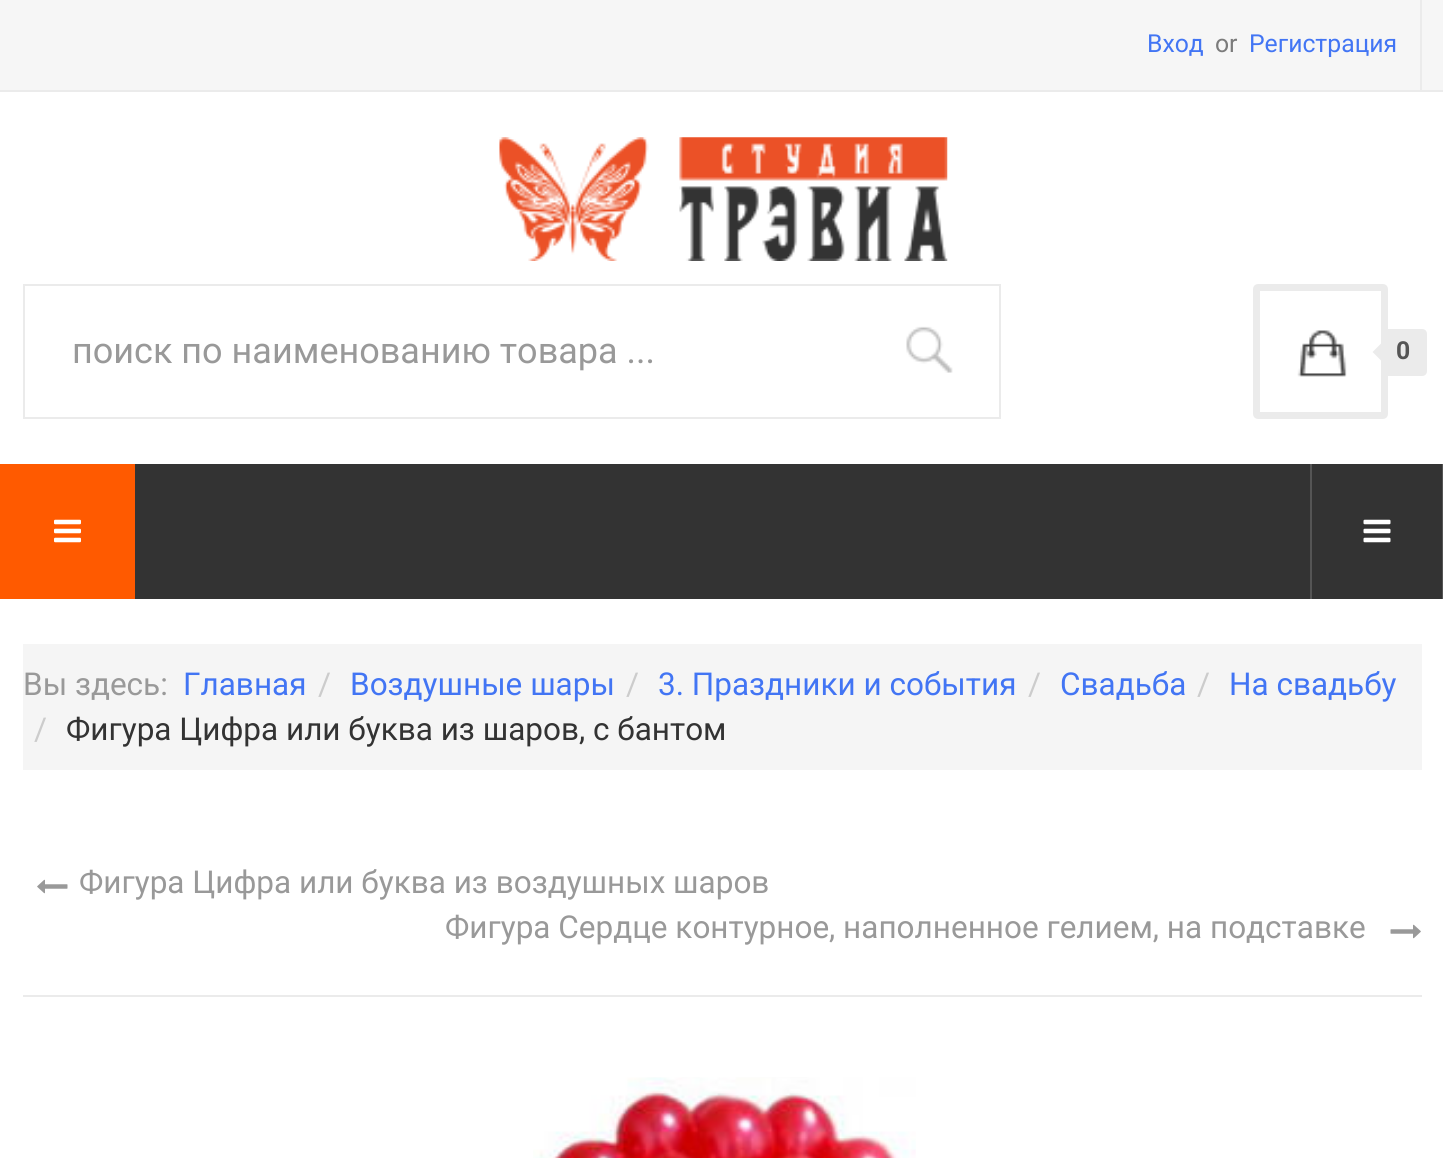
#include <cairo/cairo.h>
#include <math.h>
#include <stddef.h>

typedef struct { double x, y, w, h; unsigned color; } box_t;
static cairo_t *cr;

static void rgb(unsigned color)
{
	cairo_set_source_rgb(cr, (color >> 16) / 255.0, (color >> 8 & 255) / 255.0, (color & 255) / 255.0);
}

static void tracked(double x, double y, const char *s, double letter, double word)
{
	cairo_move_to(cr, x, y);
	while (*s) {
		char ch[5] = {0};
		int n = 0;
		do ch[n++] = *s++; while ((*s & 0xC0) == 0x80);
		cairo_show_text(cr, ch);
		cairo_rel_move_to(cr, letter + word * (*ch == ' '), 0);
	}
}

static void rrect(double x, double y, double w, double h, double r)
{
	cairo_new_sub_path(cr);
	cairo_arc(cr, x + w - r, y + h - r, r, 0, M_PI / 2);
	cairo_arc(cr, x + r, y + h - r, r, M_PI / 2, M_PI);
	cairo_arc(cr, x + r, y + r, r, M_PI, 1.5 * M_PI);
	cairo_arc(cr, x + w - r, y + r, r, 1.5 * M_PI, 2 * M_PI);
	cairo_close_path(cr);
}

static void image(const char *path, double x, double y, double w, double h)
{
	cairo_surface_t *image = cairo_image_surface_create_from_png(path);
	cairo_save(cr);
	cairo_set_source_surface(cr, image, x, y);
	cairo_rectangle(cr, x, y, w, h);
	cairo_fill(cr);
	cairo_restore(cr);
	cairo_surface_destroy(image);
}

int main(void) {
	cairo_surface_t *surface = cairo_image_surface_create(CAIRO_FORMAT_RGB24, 1443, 1158);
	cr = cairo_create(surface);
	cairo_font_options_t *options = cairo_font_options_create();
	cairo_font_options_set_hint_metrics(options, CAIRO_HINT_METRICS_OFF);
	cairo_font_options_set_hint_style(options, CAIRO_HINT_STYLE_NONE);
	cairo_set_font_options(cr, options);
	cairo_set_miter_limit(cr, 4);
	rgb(0xffffff);
	cairo_paint(cr);
	{
		static const box_t items[] = {
			{0, 0, 1443, 90, 0xf6f6f6},
			{0, 90, 1443, 2, 0xebebeb},
			{1420, 0, 2, 90, 0xebebeb},
		};
		for (size_t i = 0; i < sizeof items / sizeof *items; i++) {
			rgb(items[i].color);
			cairo_rectangle(cr, items[i].x, items[i].y, items[i].w, items[i].h);
			cairo_fill(cr);
		}
	}
	image("img/1.png", 499, 137, 449, 124);
	cairo_rectangle(cr, 24, 285, 976, 133);
	cairo_stroke(cr);
	image("img/2.png", 906, 326, 47, 47);
	image("img/3.png", 1297, 330, 50, 47);
	rrect(1256.5, 287.5, 128, 128, 1.5);
	cairo_set_line_width(cr, 7);
	cairo_stroke(cr);
	cairo_new_path(cr);
	cairo_move_to(cr, 1382, 329);
	cairo_line_to(cr, 1422, 329);
	cairo_curve_to(cr, 1425, 329, 1427, 331, 1427, 334);
	cairo_line_to(cr, 1427, 371);
	cairo_curve_to(cr, 1427, 374, 1425, 376, 1422, 376);
	cairo_line_to(cr, 1382, 376);
	cairo_close_path(cr);
	cairo_fill(cr);
	cairo_new_path(cr);
	cairo_move_to(cr, 1381.5, 343);
	cairo_line_to(cr, 1381.5, 361);
	cairo_line_to(cr, 1372.5, 352);
	cairo_close_path(cr);
	cairo_fill(cr);
	rgb(0x333333);
	cairo_rectangle(cr, 135, 464, 1307, 135);
	cairo_fill(cr);
	rgb(0xff5a00);
	cairo_rectangle(cr, 0, 464, 135, 135);
	cairo_fill(cr);
	image("img/4.png", 54, 519, 27, 24);
	rgb(0x555555);
	cairo_rectangle(cr, 1442, 464, 1, 135);
	cairo_fill(cr);
	cairo_rectangle(cr, 1310, 464, 2, 135);
	cairo_fill(cr);
	image("img/5.png", 1363, 519, 28, 24);
	rgb(0xf5f5f5);
	cairo_rectangle(cr, 23, 644, 1399, 126);
	cairo_fill(cr);
	rgb(0xebebeb);
	cairo_rectangle(cr, 23, 995, 1399, 2);
	cairo_fill(cr);
	image("img/6.png", 37, 879, 31, 15);
	image("img/7.png", 1390, 924, 31, 15);
	image("img/8.png", 533, 1077, 383, 81);
	cairo_select_font_face(cr, "Roboto", CAIRO_FONT_SLANT_NORMAL, CAIRO_FONT_WEIGHT_NORMAL);
	cairo_set_font_size(cr, 24.75);
	rgb(0x4275f4);
	cairo_move_to(cr, 1147, 52);
	cairo_show_text(cr, "Вход");
	rgb(0x7b7b7b);
	cairo_move_to(cr, 1215, 52);
	cairo_show_text(cr, "or");
	rgb(0x4275f4);
	cairo_move_to(cr, 1249, 52);
	cairo_show_text(cr, "Регистрация");
	cairo_set_font_size(cr, 36);
	rgb(0x999999);
	cairo_move_to(cr, 72, 363);
	cairo_show_text(cr, "поиск по наименованию товара ...");
	cairo_select_font_face(cr, "Roboto", CAIRO_FONT_SLANT_NORMAL, CAIRO_FONT_WEIGHT_BOLD);
	cairo_set_font_size(cr, 24.75);
	rgb(0x555555);
	tracked(1396, 359, "0", 1, 0);
	cairo_select_font_face(cr, "Roboto", CAIRO_FONT_SLANT_NORMAL, CAIRO_FONT_WEIGHT_NORMAL);
	cairo_set_font_size(cr, 31.5);
	rgb(0x999999);
	cairo_move_to(cr, 23, 695);
	cairo_show_text(cr, "Вы здесь:");
	rgb(0x4275f4);
	cairo_move_to(cr, 183, 695);
	cairo_show_text(cr, "Главная");
	rgb(0xcccccc);
	cairo_move_to(cr, 318, 695);
	cairo_show_text(cr, "/");
	rgb(0x4275f4);
	cairo_move_to(cr, 350, 695);
	cairo_show_text(cr, "Воздушные шары");
	rgb(0xcccccc);
	cairo_move_to(cr, 626, 695);
	cairo_show_text(cr, "/");
	rgb(0x4275f4);
	cairo_move_to(cr, 658, 695);
	cairo_show_text(cr, "3. Праздники и события");
	rgb(0xcccccc);
	cairo_move_to(cr, 1028, 695);
	cairo_show_text(cr, "/");
	rgb(0x4275f4);
	cairo_move_to(cr, 1060, 695);
	cairo_show_text(cr, "Свадьба");
	rgb(0xcccccc);
	cairo_move_to(cr, 1197, 695);
	cairo_show_text(cr, "/");
	rgb(0x4275f4);
	cairo_move_to(cr, 1229, 695);
	cairo_show_text(cr, "На свадьбу");
	rgb(0xcccccc);
	cairo_move_to(cr, 34, 740);
	cairo_show_text(cr, "/");
	rgb(0x333333);
	cairo_move_to(cr, 66, 740);
	cairo_show_text(cr, "Фигура Цифра или буква из шаров, с бантом");
	rgb(0x999999);
	cairo_move_to(cr, 79, 893);
	cairo_show_text(cr, "Фигура Цифра или буква из воздушных шаров");
	cairo_move_to(cr, 445, 938);
	cairo_show_text(cr, "Фигура Сердце контурное, наполненное гелием, на подставке");
	cairo_surface_write_to_png(surface, "page.png");
	cairo_font_options_destroy(options);
	cairo_destroy(cr);
	cairo_surface_destroy(surface);
	return 0;
}
